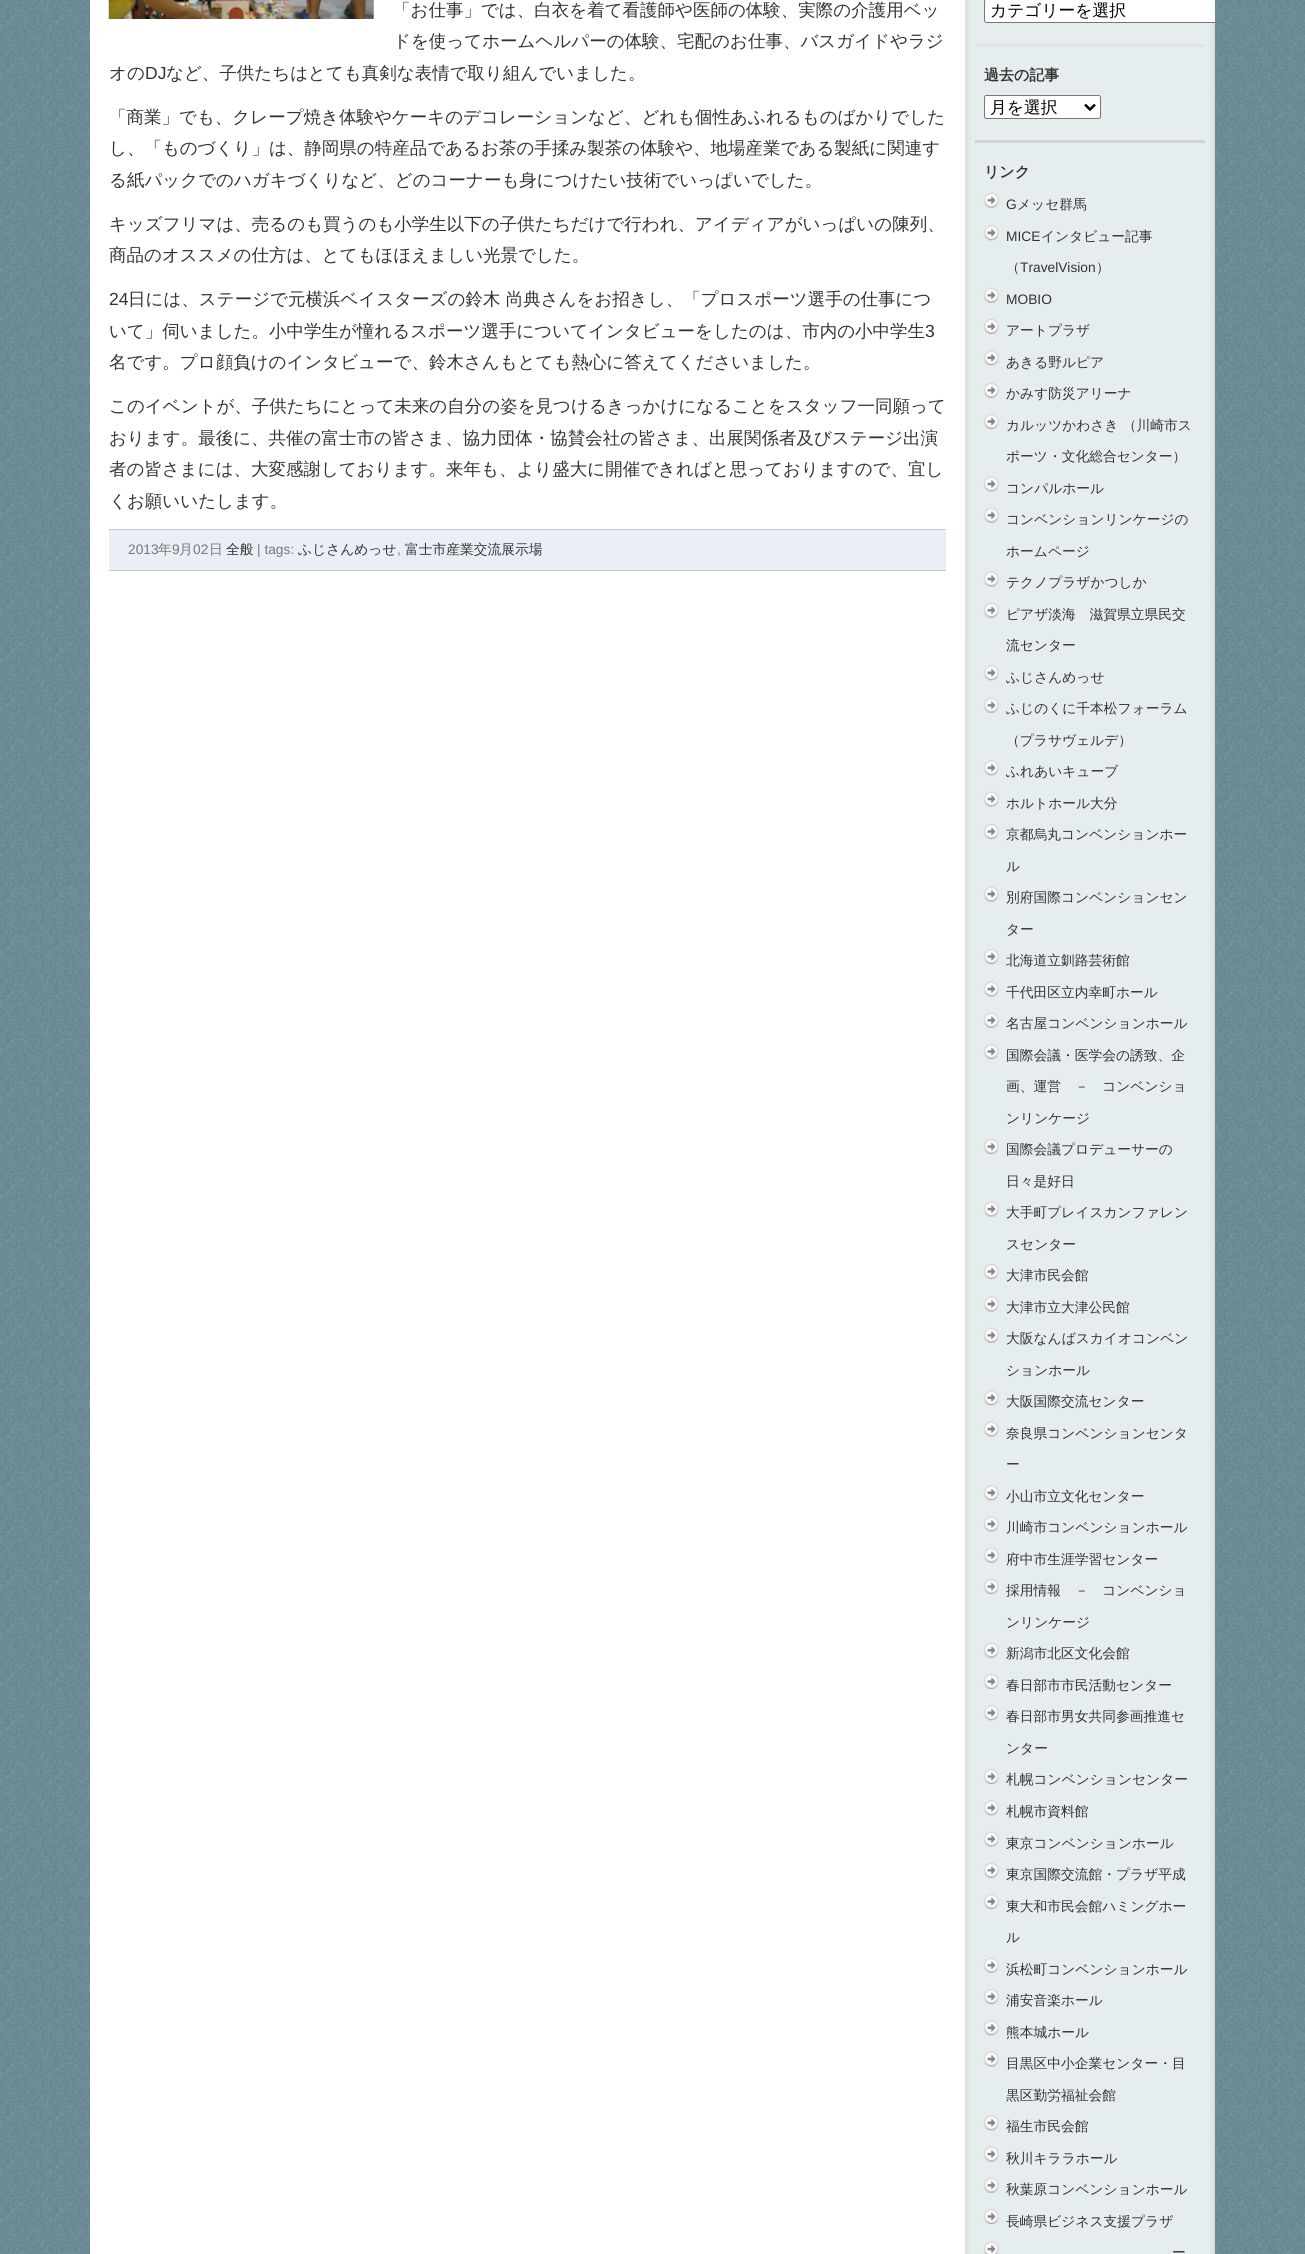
#include <cairo/cairo.h>
#include <math.h>
#include <stddef.h>

typedef struct { double x, y; const char *s; } line_t;
typedef struct { double x, y, w, h; unsigned color; } box_t;
static cairo_t *cr;

static void rgb(unsigned color)
{
	cairo_set_source_rgb(cr, (color >> 16) / 255.0, (color >> 8 & 255) / 255.0, (color & 255) / 255.0);
}

static void rrect(double x, double y, double w, double h, double r)
{
	cairo_new_sub_path(cr);
	cairo_arc(cr, x + w - r, y + h - r, r, 0, M_PI / 2);
	cairo_arc(cr, x + r, y + h - r, r, M_PI / 2, M_PI);
	cairo_arc(cr, x + r, y + r, r, M_PI, 1.5 * M_PI);
	cairo_arc(cr, x + w - r, y + r, r, 1.5 * M_PI, 2 * M_PI);
	cairo_close_path(cr);
}

static void image(const char *path, double x, double y, double w, double h)
{
	cairo_surface_t *image = cairo_image_surface_create_from_png(path);
	cairo_save(cr);
	cairo_set_source_surface(cr, image, x, y);
	cairo_rectangle(cr, x, y, w, h);
	cairo_fill(cr);
	cairo_restore(cr);
	cairo_surface_destroy(image);
}

int main(void) {
	cairo_surface_t *surface = cairo_image_surface_create(CAIRO_FORMAT_RGB24, 1305, 2254);
	cr = cairo_create(surface);
	cairo_font_options_t *options = cairo_font_options_create();
	cairo_font_options_set_hint_metrics(options, CAIRO_HINT_METRICS_OFF);
	cairo_font_options_set_hint_style(options, CAIRO_HINT_STYLE_NONE);
	cairo_set_font_options(cr, options);
	cairo_set_miter_limit(cr, 4);
	rgb(0xffffff);
	cairo_paint(cr);
	image("img/1.png", 0, 0, 1305, 2254);
	image("img/2.png", 90, 0, 1125, 2254);
	rgb(0xffffff);
	cairo_rectangle(cr, 964, 0, 1, 640);
	cairo_fill(cr);
	image("img/3.png", 108, 0, 266, 19);
	{
		static const box_t items[] = {
			{109, 530, 837, 40, 0xe9eff5},
			{109, 529, 837, 1, 0xbdccdc},
			{109, 570, 837, 1, 0xbdccdc},
			{975, 44, 230, 3, 0xe2e2e2},
		};
		for (size_t i = 0; i < sizeof items / sizeof *items; i++) {
			rgb(items[i].color);
			cairo_rectangle(cr, items[i].x, items[i].y, items[i].w, items[i].h);
			cairo_fill(cr);
		}
	}
	rgb(0xffffff);
	cairo_new_path(cr);
	cairo_move_to(cr, 986.5, -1);
	cairo_line_to(cr, 1215, -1);
	cairo_line_to(cr, 1215, 23);
	cairo_line_to(cr, 986.5, 23);
	cairo_curve_to(cr, 985, 23, 984, 22, 984, 20.5);
	cairo_line_to(cr, 984, 1.5);
	cairo_curve_to(cr, 984, 0, 985, -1, 986.5, -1);
	cairo_close_path(cr);
	cairo_fill(cr);
	cairo_save(cr);
	cairo_rectangle(cr, 965, 0, 250, 46);
	cairo_clip(cr);
	rrect(984.5, -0.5, 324, 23, 2);
	rgb(0x767676);
	cairo_set_line_width(cr, 1);
	cairo_stroke(cr);
	cairo_restore(cr);
	rgb(0xd2d2d2);
	cairo_rectangle(cr, 975, 140, 230, 3);
	cairo_fill(cr);
	rgb(0xffffff);
	rrect(984.5, 95.5, 116, 23, 2);
	cairo_fill_preserve(cr);
	rgb(0x767676);
	cairo_set_line_width(cr, 1);
	cairo_stroke(cr);
	cairo_new_path(cr);
	cairo_move_to(cr, 1085, 104.5);
	cairo_line_to(cr, 1090, 109.5);
	cairo_line_to(cr, 1095, 104.5);
	rgb(0x000000);
	cairo_set_line_width(cr, 2.5);
	cairo_stroke(cr);
	image("img/4.png", 983, 192, 16, 16);
	image("img/5.png", 983, 225, 16, 16);
	image("img/4.png", 983, 287, 16, 16);
	image("img/6.png", 983, 319, 16, 15);
	image("img/5.png", 983, 350, 16, 16);
	image("img/4.png", 983, 382, 16, 16);
	image("img/6.png", 983, 414, 16, 15);
	image("img/7.png", 983, 476, 16, 16);
	image("img/4.png", 983, 507, 16, 16);
	image("img/7.png", 983, 571, 16, 16);
	image("img/4.png", 983, 602, 16, 16);
	image("img/5.png", 983, 665, 16, 16);
	image("img/4.png", 983, 697, 16, 16);
	image("img/5.png", 983, 760, 16, 16);
	image("img/7.png", 983, 791, 16, 16);
	image("img/6.png", 983, 824, 16, 15);
	image("img/7.png", 983, 886, 16, 16);
	image("img/6.png", 983, 949, 16, 15);
	image("img/7.png", 983, 981, 16, 16);
	image("img/4.png", 983, 1012, 16, 16);
	image("img/6.png", 983, 1044, 16, 15);
	image("img/6.png", 983, 1139, 16, 15);
	image("img/7.png", 983, 1201, 16, 16);
	image("img/6.png", 983, 1264, 16, 15);
	image("img/7.png", 983, 1296, 16, 16);
	image("img/4.png", 983, 1327, 16, 16);
	image("img/5.png", 983, 1390, 16, 16);
	image("img/8.png", 983, 1421, 16, 16);
	image("img/5.png", 983, 1485, 16, 16);
	image("img/7.png", 983, 1516, 16, 16);
	image("img/4.png", 983, 1547, 16, 16);
	image("img/6.png", 983, 1579, 16, 15);
	image("img/4.png", 983, 1642, 16, 16);
	image("img/6.png", 983, 1674, 16, 15);
	image("img/5.png", 983, 1705, 16, 16);
	image("img/6.png", 983, 1769, 16, 15);
	image("img/5.png", 983, 1800, 16, 16);
	image("img/7.png", 983, 1831, 16, 16);
	image("img/4.png", 983, 1862, 16, 16);
	image("img/6.png", 983, 1894, 16, 15);
	image("img/4.png", 983, 1957, 16, 16);
	image("img/6.png", 983, 1989, 16, 15);
	image("img/5.png", 983, 2020, 16, 16);
	image("img/7.png", 983, 2051, 16, 16);
	image("img/5.png", 983, 2115, 16, 16);
	image("img/7.png", 983, 2146, 16, 16);
	image("img/4.png", 983, 2177, 16, 16);
	image("img/6.png", 983, 2209, 16, 15);
	image("img/9.png", 983, 2241, 16, 13);
	cairo_select_font_face(cr, "WenQuanYi Zen Hei Medium", CAIRO_FONT_SLANT_NORMAL, CAIRO_FONT_WEIGHT_NORMAL);
	cairo_set_font_size(cr, 17.5);
	rgb(0x333333);
	{
		static const line_t items[] = {
			{393, 16, "「お仕事」では、白衣を着て看護師や医師の体験、実際の介護用ベッ"},
			{393, 47, "ドを使ってホームヘルパーの体験、宅配のお仕事、バスガイドやラジ"},
			{109, 79, "オの"},
		};
		for (size_t i = 0; i < sizeof items / sizeof *items; i++) {
			cairo_move_to(cr, items[i].x, items[i].y);
			cairo_show_text(cr, items[i].s);
		}
	}
	cairo_select_font_face(cr, "Liberation Sans", CAIRO_FONT_SLANT_NORMAL, CAIRO_FONT_WEIGHT_NORMAL);
	cairo_move_to(cr, 145, 79);
	cairo_show_text(cr, "DJ");
	cairo_select_font_face(cr, "WenQuanYi Zen Hei Medium", CAIRO_FONT_SLANT_NORMAL, CAIRO_FONT_WEIGHT_NORMAL);
	{
		static const line_t items[] = {
			{166, 79, "など、子供たちはとても真剣な表情で取り組んでいました。"},
			{109, 123, "「商業」でも、クレープ焼き体験やケーキのデコレーションなど、どれも個性あふれるものばかりでした"},
			{109, 154, "し、「ものづくり」は、静岡県の特産品であるお茶の手揉み製茶の体験や、地場産業である製紙に関連す"},
			{109, 186, "る紙パックでのハガキづくりなど、どのコーナーも身につけたい技術でいっぱいでした。"},
			{109, 230, "キッズフリマは、売るのも買うのも小学生以下の子供たちだけで行われ、アイディアがいっぱいの陳列、"},
			{109, 261, "商品のオススメの仕方は、とてもほほえましい光景でした。"},
		};
		for (size_t i = 0; i < sizeof items / sizeof *items; i++) {
			cairo_move_to(cr, items[i].x, items[i].y);
			cairo_show_text(cr, items[i].s);
		}
	}
	cairo_select_font_face(cr, "Liberation Sans", CAIRO_FONT_SLANT_NORMAL, CAIRO_FONT_WEIGHT_NORMAL);
	cairo_move_to(cr, 109, 305);
	cairo_show_text(cr, "24");
	cairo_select_font_face(cr, "WenQuanYi Zen Hei Medium", CAIRO_FONT_SLANT_NORMAL, CAIRO_FONT_WEIGHT_NORMAL);
	cairo_move_to(cr, 128, 305);
	cairo_show_text(cr, "日には、ステージで元横浜ベイスターズの鈴木 尚典さんをお招きし、「プロスポーツ選手の仕事につ");
	cairo_move_to(cr, 109, 337);
	cairo_show_text(cr, "いて」伺いました。小中学生が憧れるスポーツ選手についてインタビューをしたのは、市内の小中学生");
	cairo_select_font_face(cr, "Liberation Sans", CAIRO_FONT_SLANT_NORMAL, CAIRO_FONT_WEIGHT_NORMAL);
	cairo_move_to(cr, 925, 337);
	cairo_show_text(cr, "3");
	cairo_select_font_face(cr, "WenQuanYi Zen Hei Medium", CAIRO_FONT_SLANT_NORMAL, CAIRO_FONT_WEIGHT_NORMAL);
	{
		static const line_t items[] = {
			{109, 368, "名です。プロ顔負けのインタビューで、鈴木さんもとても熱心に答えてくださいました。"},
			{109, 412, "このイベントが、子供たちにとって未来の自分の姿を見つけるきっかけになることをスタッフ一同願って"},
			{109, 444, "おります。最後に、共催の富士市の皆さま、協力団体・協賛会社の皆さま、出展関係者及びステージ出演"},
			{109, 475, "者の皆さまには、大変感謝しております。来年も、より盛大に開催できればと思っておりますので、宜し"},
			{109, 507, "くお願いいたします。"},
		};
		for (size_t i = 0; i < sizeof items / sizeof *items; i++) {
			cairo_move_to(cr, items[i].x, items[i].y);
			cairo_show_text(cr, items[i].s);
		}
	}
	cairo_select_font_face(cr, "Liberation Sans", CAIRO_FONT_SLANT_NORMAL, CAIRO_FONT_WEIGHT_NORMAL);
	cairo_set_font_size(cr, 13.75);
	rgb(0x777777);
	cairo_move_to(cr, 128, 554);
	cairo_show_text(cr, "2013");
	cairo_select_font_face(cr, "WenQuanYi Zen Hei Medium", CAIRO_FONT_SLANT_NORMAL, CAIRO_FONT_WEIGHT_NORMAL);
	cairo_move_to(cr, 158, 554);
	cairo_show_text(cr, "年");
	cairo_select_font_face(cr, "Liberation Sans", CAIRO_FONT_SLANT_NORMAL, CAIRO_FONT_WEIGHT_NORMAL);
	cairo_move_to(cr, 172, 554);
	cairo_show_text(cr, "9");
	cairo_select_font_face(cr, "WenQuanYi Zen Hei Medium", CAIRO_FONT_SLANT_NORMAL, CAIRO_FONT_WEIGHT_NORMAL);
	cairo_move_to(cr, 179, 554);
	cairo_show_text(cr, "月");
	cairo_select_font_face(cr, "Liberation Sans", CAIRO_FONT_SLANT_NORMAL, CAIRO_FONT_WEIGHT_NORMAL);
	cairo_move_to(cr, 193, 554);
	cairo_show_text(cr, "02");
	cairo_select_font_face(cr, "WenQuanYi Zen Hei Medium", CAIRO_FONT_SLANT_NORMAL, CAIRO_FONT_WEIGHT_NORMAL);
	cairo_move_to(cr, 209, 554);
	cairo_show_text(cr, "日");
	rgb(0x333333);
	cairo_move_to(cr, 226, 554);
	cairo_show_text(cr, "全般");
	cairo_select_font_face(cr, "Liberation Sans", CAIRO_FONT_SLANT_NORMAL, CAIRO_FONT_WEIGHT_NORMAL);
	rgb(0x777777);
	cairo_move_to(cr, 257, 554);
	cairo_show_text(cr, "| tags:");
	cairo_select_font_face(cr, "WenQuanYi Zen Hei Medium", CAIRO_FONT_SLANT_NORMAL, CAIRO_FONT_WEIGHT_NORMAL);
	rgb(0x333333);
	cairo_move_to(cr, 298, 554);
	cairo_show_text(cr, "ふじさんめっせ");
	cairo_select_font_face(cr, "Liberation Sans", CAIRO_FONT_SLANT_NORMAL, CAIRO_FONT_WEIGHT_NORMAL);
	rgb(0x777777);
	cairo_move_to(cr, 397, 554);
	cairo_show_text(cr, ",");
	cairo_select_font_face(cr, "WenQuanYi Zen Hei Medium", CAIRO_FONT_SLANT_NORMAL, CAIRO_FONT_WEIGHT_NORMAL);
	rgb(0x333333);
	cairo_move_to(cr, 405, 554);
	cairo_show_text(cr, "富士市産業交流展示場");
	cairo_set_font_size(cr, 16.75);
	rgb(0x000000);
	cairo_move_to(cr, 990, 16);
	cairo_show_text(cr, "カテゴリーを選択");
	cairo_select_font_face(cr, "WenQuanYi Zen Hei", CAIRO_FONT_SLANT_NORMAL, CAIRO_FONT_WEIGHT_BOLD);
	cairo_set_font_size(cr, 15);
	rgb(0x333333);
	cairo_move_to(cr, 984, 80);
	cairo_show_text(cr, "過去の記事");
	cairo_select_font_face(cr, "WenQuanYi Zen Hei Medium", CAIRO_FONT_SLANT_NORMAL, CAIRO_FONT_WEIGHT_NORMAL);
	cairo_set_font_size(cr, 16.75);
	rgb(0x000000);
	cairo_move_to(cr, 990, 113);
	cairo_show_text(cr, "月を選択");
	cairo_select_font_face(cr, "WenQuanYi Zen Hei", CAIRO_FONT_SLANT_NORMAL, CAIRO_FONT_WEIGHT_BOLD);
	cairo_set_font_size(cr, 15);
	rgb(0x333333);
	cairo_move_to(cr, 984, 177);
	cairo_show_text(cr, "リンク");
	cairo_select_font_face(cr, "Liberation Sans", CAIRO_FONT_SLANT_NORMAL, CAIRO_FONT_WEIGHT_NORMAL);
	cairo_set_font_size(cr, 13.75);
	cairo_move_to(cr, 1006, 209);
	cairo_show_text(cr, "G");
	cairo_select_font_face(cr, "WenQuanYi Zen Hei Medium", CAIRO_FONT_SLANT_NORMAL, CAIRO_FONT_WEIGHT_NORMAL);
	cairo_move_to(cr, 1017, 209);
	cairo_show_text(cr, "メッセ群馬");
	cairo_select_font_face(cr, "Liberation Sans", CAIRO_FONT_SLANT_NORMAL, CAIRO_FONT_WEIGHT_NORMAL);
	cairo_move_to(cr, 1006, 241);
	cairo_show_text(cr, "MICE");
	cairo_select_font_face(cr, "WenQuanYi Zen Hei Medium", CAIRO_FONT_SLANT_NORMAL, CAIRO_FONT_WEIGHT_NORMAL);
	cairo_move_to(cr, 1041, 241);
	cairo_show_text(cr, "インタビュー記事");
	cairo_move_to(cr, 1006, 272);
	cairo_show_text(cr, "（");
	cairo_select_font_face(cr, "Liberation Sans", CAIRO_FONT_SLANT_NORMAL, CAIRO_FONT_WEIGHT_NORMAL);
	cairo_move_to(cr, 1020, 272);
	cairo_show_text(cr, "TravelVision");
	cairo_select_font_face(cr, "WenQuanYi Zen Hei Medium", CAIRO_FONT_SLANT_NORMAL, CAIRO_FONT_WEIGHT_NORMAL);
	cairo_move_to(cr, 1096, 272);
	cairo_show_text(cr, "）");
	cairo_select_font_face(cr, "Liberation Sans", CAIRO_FONT_SLANT_NORMAL, CAIRO_FONT_WEIGHT_NORMAL);
	cairo_move_to(cr, 1006, 304);
	cairo_show_text(cr, "MOBIO");
	cairo_select_font_face(cr, "WenQuanYi Zen Hei Medium", CAIRO_FONT_SLANT_NORMAL, CAIRO_FONT_WEIGHT_NORMAL);
	{
		static const line_t items[] = {
			{1006, 335, "アートプラザ"},
			{1006, 367, "あきる野ルピア"},
			{1006, 398, "かみす防災アリーナ"},
			{1006, 430, "カルッツかわさき （川崎市ス"},
			{1006, 461, "ポーツ・文化総合センター）"},
			{1006, 493, "コンパルホール"},
			{1006, 524, "コンベンションリンケージの"},
			{1006, 556, "ホームページ"},
			{1006, 587, "テクノプラザかつしか"},
			{1006, 619, "ピアザ淡海　滋賀県立県民交"},
			{1006, 650, "流センター"},
			{1006, 682, "ふじさんめっせ"},
			{1006, 713, "ふじのくに千本松フォーラム"},
			{1006, 745, "（プラサヴェルデ）"},
			{1006, 776, "ふれあいキューブ"},
			{1006, 808, "ホルトホール大分"},
			{1006, 839, "京都烏丸コンベンションホー"},
			{1006, 871, "ル"},
			{1006, 902, "別府国際コンベンションセン"},
			{1006, 934, "ター"},
			{1006, 965, "北海道立釧路芸術館"},
			{1006, 997, "千代田区立内幸町ホール"},
			{1006, 1028, "名古屋コンベンションホール"},
			{1006, 1060, "国際会議・医学会の誘致、企"},
			{1006, 1091, "画、運営　－　コンベンショ"},
			{1006, 1123, "ンリンケージ"},
			{1006, 1154, "国際会議プロデューサーの"},
			{1006, 1186, "日々是好日"},
			{1006, 1217, "大手町プレイスカンファレン"},
			{1006, 1249, "スセンター"},
			{1006, 1280, "大津市民会館"},
			{1006, 1312, "大津市立大津公民館"},
			{1006, 1343, "大阪なんばスカイオコンベン"},
			{1006, 1375, "ションホール"},
			{1006, 1406, "大阪国際交流センター"},
			{1006, 1438, "奈良県コンベンションセンタ"},
			{1006, 1469, "ー"},
			{1006, 1501, "小山市立文化センター"},
			{1006, 1532, "川崎市コンベンションホール"},
			{1006, 1564, "府中市生涯学習センター"},
			{1006, 1595, "採用情報　－　コンベンショ"},
			{1006, 1627, "ンリンケージ"},
			{1006, 1658, "新潟市北区文化会館"},
			{1006, 1690, "春日部市市民活動センター"},
			{1006, 1721, "春日部市男女共同参画推進セ"},
			{1006, 1753, "ンター"},
			{1006, 1784, "札幌コンベンションセンター"},
			{1006, 1816, "札幌市資料館"},
			{1006, 1848, "東京コンベンションホール"},
			{1006, 1879, "東京国際交流館・プラザ平成"},
			{1006, 1911, "東大和市民会館ハミングホー"},
			{1006, 1942, "ル"},
			{1006, 1974, "浜松町コンベンションホール"},
			{1006, 2005, "浦安音楽ホール"},
			{1006, 2037, "熊本城ホール"},
			{1006, 2068, "目黒区中小企業センター・目"},
			{1006, 2100, "黒区勤労福祉会館"},
			{1006, 2131, "福生市民会館"},
			{1006, 2163, "秋川キララホール"},
			{1006, 2194, "秋葉原コンベンションホール"},
			{1006, 2226, "長崎県ビジネス支援プラザ"},
			{1172, 2257, "ー"},
		};
		for (size_t i = 0; i < sizeof items / sizeof *items; i++) {
			cairo_move_to(cr, items[i].x, items[i].y);
			cairo_show_text(cr, items[i].s);
		}
	}
	cairo_surface_write_to_png(surface, "page.png");
	cairo_font_options_destroy(options);
	cairo_destroy(cr);
	cairo_surface_destroy(surface);
	return 0;
}
